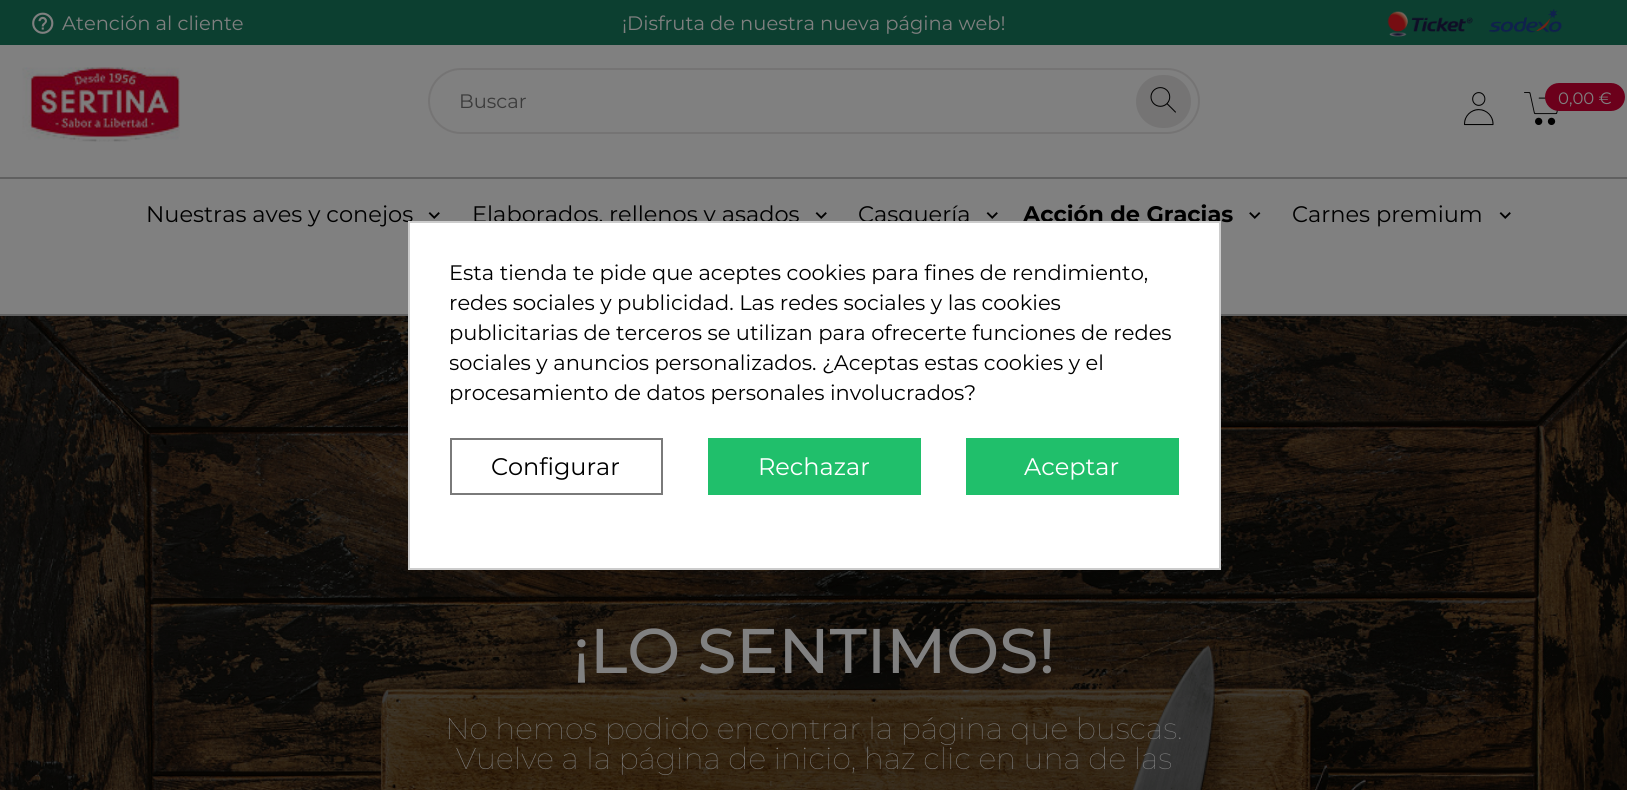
#include <cairo/cairo.h>
#include <math.h>
#include <stddef.h>

typedef struct { double x, y; const char *s; } line_t;
static cairo_t *cr;

static void rgb(unsigned color)
{
	cairo_set_source_rgb(cr, (color >> 16) / 255.0, (color >> 8 & 255) / 255.0, (color & 255) / 255.0);
}

static void rrect(double x, double y, double w, double h, double r)
{
	cairo_new_sub_path(cr);
	cairo_arc(cr, x + w - r, y + h - r, r, 0, M_PI / 2);
	cairo_arc(cr, x + r, y + h - r, r, M_PI / 2, M_PI);
	cairo_arc(cr, x + r, y + r, r, M_PI, 1.5 * M_PI);
	cairo_arc(cr, x + w - r, y + r, r, 1.5 * M_PI, 2 * M_PI);
	cairo_close_path(cr);
}

static void image(const char *path, double x, double y, double w, double h)
{
	cairo_surface_t *image = cairo_image_surface_create_from_png(path);
	cairo_save(cr);
	cairo_set_source_surface(cr, image, x, y);
	cairo_rectangle(cr, x, y, w, h);
	cairo_fill(cr);
	cairo_restore(cr);
	cairo_surface_destroy(image);
}

int main(void) {
	cairo_surface_t *surface = cairo_image_surface_create(CAIRO_FORMAT_RGB24, 1627, 790);
	cr = cairo_create(surface);
	cairo_font_options_t *options = cairo_font_options_create();
	cairo_font_options_set_hint_metrics(options, CAIRO_HINT_METRICS_OFF);
	cairo_font_options_set_hint_style(options, CAIRO_HINT_STYLE_NONE);
	cairo_set_font_options(cr, options);
	cairo_set_miter_limit(cr, 4);
	rgb(0x808080);
	cairo_paint(cr);
	rgb(0x0c3f30);
	cairo_rectangle(cr, 0, 0, 1627, 45);
	cairo_fill(cr);
	image("img/1.png", 32, 12, 22, 22);
	image("img/2.png", 1387, 11, 86, 26);
	image("img/3.png", 1489, 9, 73, 24);
	image("img/4.png", 22, 67, 158, 75);
	rrect(429, 69, 770, 64, 32);
	rgb(0x757474);
	cairo_stroke(cr);
	rrect(1136, 75, 55, 53, 26.5);
	cairo_fill(cr);
	image("img/5.png", 1150, 87, 26, 26);
	image("img/6.png", 1464, 92, 30, 34);
	image("img/7.png", 1524, 92, 34, 33);
	rgb(0x6c001b);
	rrect(1545, 83, 80, 28, 14);
	cairo_fill(cr);
	rgb(0x606060);
	cairo_rectangle(cr, 0, 177, 1627, 2);
	cairo_fill(cr);
	cairo_rectangle(cr, 0, 314, 1627, 2);
	cairo_fill(cr);
	image("img/8.png", 428, 212, 12, 7);
	image("img/8.png", 815, 212, 12, 7);
	image("img/8.png", 986, 212, 12, 7);
	image("img/9.png", 1249, 212, 12, 7);
	image("img/8.png", 1499, 212, 12, 7);
	image("img/10.png", 0, 316, 1627, 474);
	cairo_select_font_face(cr, "Montserrat", CAIRO_FONT_SLANT_NORMAL, CAIRO_FONT_WEIGHT_NORMAL);
	cairo_set_font_size(cr, 19.5);
	rgb(0x808080);
	cairo_move_to(cr, 62, 30);
	cairo_show_text(cr, "Atención al cliente");
	cairo_move_to(cr, 622, 30);
	cairo_show_text(cr, "¡Disfruta de nuestra nueva página web!");
	rgb(0x3b3b3b);
	cairo_move_to(cr, 459, 108);
	cairo_show_text(cr, "Buscar");
	cairo_set_font_size(cr, 16.5);
	rgb(0x808080);
	cairo_move_to(cr, 1558, 104);
	cairo_show_text(cr, "0,00 €");
	cairo_set_font_size(cr, 22.5);
	rgb(0x000000);
	{
		static const line_t items[] = {
			{146, 222, "Nuestras aves y conejos"},
			{472, 222, "Elaborados, rellenos y asados"},
			{858, 222, "Casquería"},
		};
		for (size_t i = 0; i < sizeof items / sizeof *items; i++) {
			cairo_move_to(cr, items[i].x, items[i].y);
			cairo_show_text(cr, items[i].s);
		}
	}
	cairo_select_font_face(cr, "Montserrat", CAIRO_FONT_SLANT_NORMAL, CAIRO_FONT_WEIGHT_BOLD);
	cairo_move_to(cr, 1023, 222);
	cairo_show_text(cr, "Acción de Gracias");
	cairo_select_font_face(cr, "Montserrat", CAIRO_FONT_SLANT_NORMAL, CAIRO_FONT_WEIGHT_NORMAL);
	cairo_move_to(cr, 1292, 222);
	cairo_show_text(cr, "Carnes premium");
	cairo_select_font_face(cr, "Montserrat Medium", CAIRO_FONT_SLANT_NORMAL, CAIRO_FONT_WEIGHT_NORMAL);
	cairo_set_font_size(cr, 63);
	rgb(0x808080);
	cairo_move_to(cr, 573, 673);
	cairo_show_text(cr, "¡LO SENTIMOS!");
	cairo_select_font_face(cr, "Montserrat Thin", CAIRO_FONT_SLANT_NORMAL, CAIRO_FONT_WEIGHT_NORMAL);
	cairo_set_font_size(cr, 30);
	cairo_move_to(cr, 445, 739);
	cairo_show_text(cr, "No hemos podido encontrar la página que buscas.");
	cairo_move_to(cr, 456, 769);
	cairo_show_text(cr, "Vuelve a la página de inicio, haz clic en una de las");
	rgb(0xffffff);
	cairo_rectangle(cr, 409, 222, 811, 347);
	cairo_fill_preserve(cr);
	rgb(0xcccccc);
	cairo_stroke(cr);
	cairo_select_font_face(cr, "Montserrat", CAIRO_FONT_SLANT_NORMAL, CAIRO_FONT_WEIGHT_NORMAL);
	cairo_set_font_size(cr, 21);
	rgb(0x000000);
	{
		static const line_t items[] = {
			{449, 280, "Esta tienda te pide que aceptes cookies para fines de rendimiento,"},
			{449, 310, "redes sociales y publicidad. Las redes sociales y las cookies"},
			{449, 340, "publicitarias de terceros se utilizan para ofrecerte funciones de redes"},
		};
		for (size_t i = 0; i < sizeof items / sizeof *items; i++) {
			cairo_move_to(cr, items[i].x, items[i].y);
			cairo_show_text(cr, items[i].s);
		}
	}
	cairo_save(cr);
	cairo_rectangle(cr, 450, 258, 729, 150);
	cairo_clip(cr);
	cairo_move_to(cr, 449, 370);
	cairo_show_text(cr, "sociales y anuncios personalizados. ¿Aceptas estas cookies y el");
	cairo_restore(cr);
	cairo_move_to(cr, 449, 400);
	cairo_show_text(cr, "procesamiento de datos personales involucrados?");
	cairo_rectangle(cr, 451, 439, 211, 55);
	rgb(0x7a7a7a);
	cairo_stroke(cr);
	cairo_set_font_size(cr, 24);
	rgb(0x000000);
	cairo_move_to(cr, 491, 475);
	cairo_show_text(cr, "Configurar");
	rgb(0x20bf6b);
	cairo_rectangle(cr, 708, 438, 213, 57);
	cairo_fill(cr);
	rgb(0xffffff);
	cairo_move_to(cr, 758, 475);
	cairo_show_text(cr, "Rechazar");
	rgb(0x20bf6b);
	cairo_rectangle(cr, 966, 438, 213, 57);
	cairo_fill(cr);
	rgb(0xffffff);
	cairo_move_to(cr, 1024, 475);
	cairo_show_text(cr, "Aceptar");
	cairo_surface_write_to_png(surface, "page.png");
	cairo_font_options_destroy(options);
	cairo_destroy(cr);
	cairo_surface_destroy(surface);
	return 0;
}
